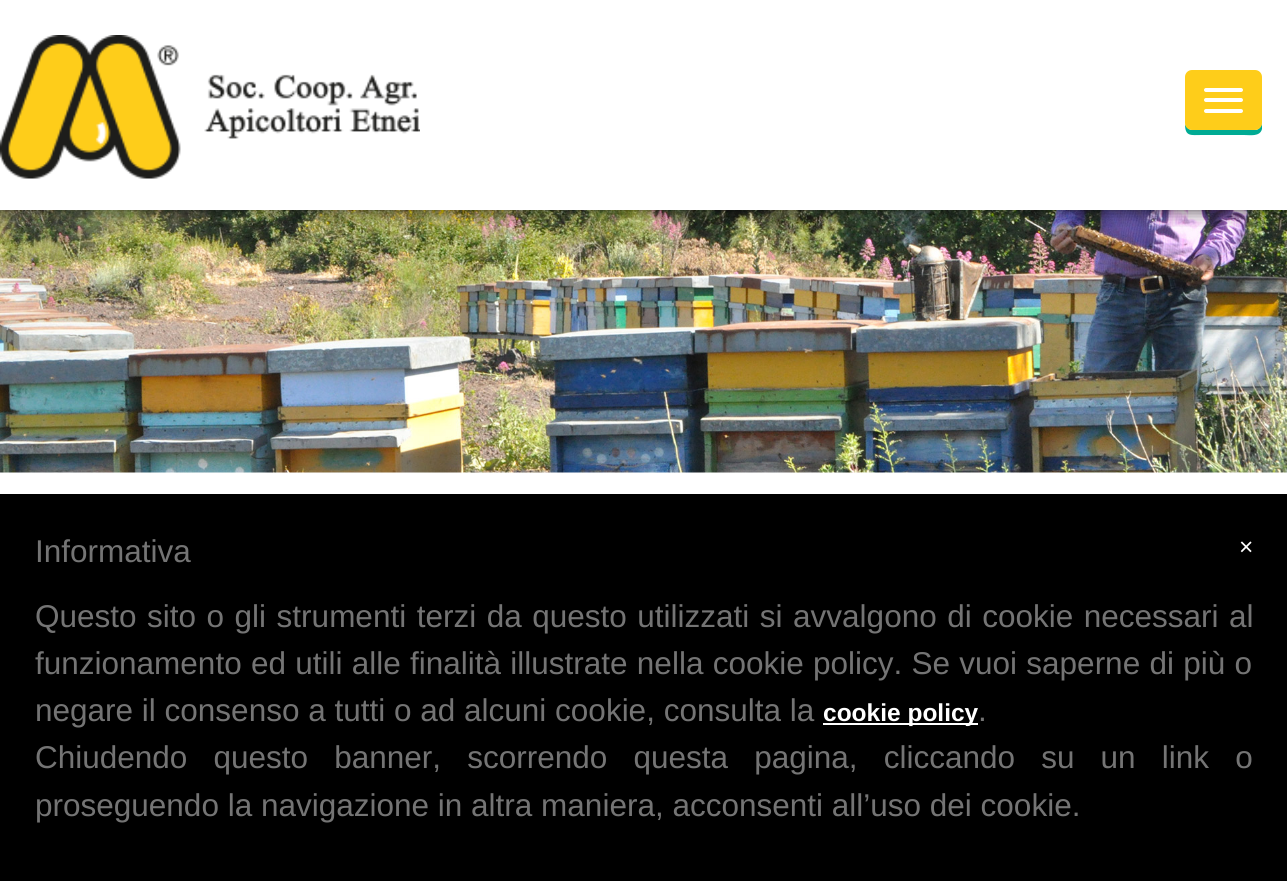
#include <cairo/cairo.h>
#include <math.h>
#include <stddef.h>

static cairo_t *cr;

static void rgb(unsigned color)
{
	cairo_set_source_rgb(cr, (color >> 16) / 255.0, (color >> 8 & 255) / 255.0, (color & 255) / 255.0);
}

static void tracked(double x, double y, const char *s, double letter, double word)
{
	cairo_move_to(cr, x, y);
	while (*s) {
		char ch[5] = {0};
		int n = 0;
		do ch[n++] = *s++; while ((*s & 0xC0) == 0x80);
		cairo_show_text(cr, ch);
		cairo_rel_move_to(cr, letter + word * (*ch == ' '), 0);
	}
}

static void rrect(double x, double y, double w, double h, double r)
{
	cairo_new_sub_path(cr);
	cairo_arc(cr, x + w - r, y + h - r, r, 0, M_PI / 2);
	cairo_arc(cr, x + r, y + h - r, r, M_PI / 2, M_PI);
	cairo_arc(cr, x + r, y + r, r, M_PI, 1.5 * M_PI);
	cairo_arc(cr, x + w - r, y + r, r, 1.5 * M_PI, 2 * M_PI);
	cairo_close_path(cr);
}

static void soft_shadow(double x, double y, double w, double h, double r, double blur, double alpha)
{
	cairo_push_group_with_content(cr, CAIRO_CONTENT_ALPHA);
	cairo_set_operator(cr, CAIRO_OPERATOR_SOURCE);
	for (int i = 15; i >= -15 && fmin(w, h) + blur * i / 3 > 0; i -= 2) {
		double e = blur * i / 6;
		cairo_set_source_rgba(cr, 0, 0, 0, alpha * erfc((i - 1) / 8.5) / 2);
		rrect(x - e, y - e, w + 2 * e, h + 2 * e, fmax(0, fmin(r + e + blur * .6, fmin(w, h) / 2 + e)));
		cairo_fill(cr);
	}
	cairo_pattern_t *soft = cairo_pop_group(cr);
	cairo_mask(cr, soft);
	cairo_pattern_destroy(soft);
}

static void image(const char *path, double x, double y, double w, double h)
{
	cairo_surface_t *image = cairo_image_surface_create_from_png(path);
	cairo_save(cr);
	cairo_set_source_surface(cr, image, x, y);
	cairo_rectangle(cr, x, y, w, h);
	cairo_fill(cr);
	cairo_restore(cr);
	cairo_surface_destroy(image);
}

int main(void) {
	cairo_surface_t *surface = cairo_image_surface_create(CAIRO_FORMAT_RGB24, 1287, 881);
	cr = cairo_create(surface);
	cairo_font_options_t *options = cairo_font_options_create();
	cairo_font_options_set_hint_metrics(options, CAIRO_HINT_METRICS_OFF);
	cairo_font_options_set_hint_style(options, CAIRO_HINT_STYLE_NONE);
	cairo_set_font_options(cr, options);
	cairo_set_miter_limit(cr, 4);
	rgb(0xffffff);
	cairo_paint(cr);
	image("img/2.png", 0, 210, 1287, 263);
	cairo_save(cr);
	cairo_rectangle(cr, 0, 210, 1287, 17);
	cairo_clip(cr);
	rgb(0x000000);
	soft_shadow(0, 0, 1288, 210, 0, 9, 0.75);
	cairo_restore(cr);
	image("img/1.png", 0, 35, 420, 144);
	rgb(0x00ab94);
	cairo_new_path(cr);
	cairo_move_to(cr, 1185, 124);
	cairo_curve_to(cr, 1185, 137, 1191, 135, 1202, 135);
	cairo_line_to(cr, 1244, 135);
	cairo_curve_to(cr, 1250, 135, 1260, 137, 1262, 129);
	cairo_line_to(cr, 1262, 80);
	cairo_line_to(cr, 1262, 122);
	cairo_curve_to(cr, 1262, 126, 1259, 130, 1255, 130);
	cairo_line_to(cr, 1192, 130);
	cairo_curve_to(cr, 1189, 130, 1186, 127, 1185, 124);
	cairo_close_path(cr);
	cairo_fill(cr);
	rgb(0xfecd1a);
	rrect(1185, 70, 77, 60, 7);
	cairo_fill(cr);
	rgb(0xffffff);
	rrect(1204, 88, 39, 4, 2);
	cairo_fill(cr);
	rrect(1204, 98, 39, 4, 2);
	cairo_fill(cr);
	rrect(1204, 109, 39, 4, 2);
	cairo_fill(cr);
	rgb(0x000000);
	cairo_rectangle(cr, 0, 494, 1287, 387);
	cairo_fill(cr);
	rgb(0xffffff);
	cairo_rectangle(cr, 823, 723, 155, 2);
	cairo_fill(cr);
	cairo_select_font_face(cr, "Liberation Sans", CAIRO_FONT_SLANT_NORMAL, CAIRO_FONT_WEIGHT_NORMAL);
	cairo_set_font_size(cr, 31.5);
	rgb(0x747474);
	cairo_move_to(cr, 35, 562);
	cairo_show_text(cr, "Informativa");
	tracked(35, 627, "Questo sito o gli strumenti terzi da questo utilizzati si avvalgono di cookie necessari al", 0, 1.75);
	tracked(35, 674, "funzionamento ed utili alle finalità illustrate nella cookie policy. Se vuoi saperne di più o", 0, 0.5);
	cairo_move_to(cr, 35, 721);
	cairo_show_text(cr, "negare il consenso a tutti o ad alcuni cookie, consulta la");
	cairo_select_font_face(cr, "Liberation Sans", CAIRO_FONT_SLANT_NORMAL, CAIRO_FONT_WEIGHT_BOLD);
	cairo_set_font_size(cr, 24.5);
	rgb(0xffffff);
	cairo_move_to(cr, 823, 721);
	cairo_show_text(cr, "cookie policy");
	cairo_select_font_face(cr, "Liberation Sans", CAIRO_FONT_SLANT_NORMAL, CAIRO_FONT_WEIGHT_NORMAL);
	cairo_set_font_size(cr, 31.5);
	rgb(0x747474);
	cairo_move_to(cr, 978, 721);
	cairo_show_text(cr, ".");
	tracked(35, 768, "Chiudendo questo banner, scorrendo questa pagina, cliccando su un link o", 0, 17.4);
	cairo_move_to(cr, 35, 816);
	cairo_show_text(cr, "proseguendo la navigazione in altra maniera, acconsenti all’uso dei cookie.");
	cairo_set_font_size(cr, 24.5);
	rgb(0xffffff);
	cairo_move_to(cr, 1239, 555);
	cairo_show_text(cr, "×");
	cairo_surface_write_to_png(surface, "page.png");
	cairo_font_options_destroy(options);
	cairo_destroy(cr);
	cairo_surface_destroy(surface);
	return 0;
}
